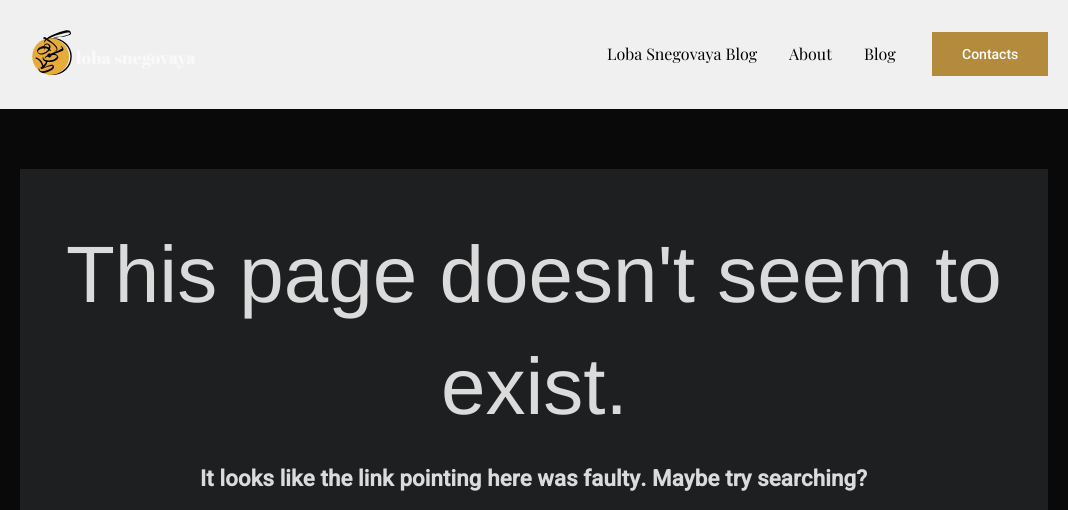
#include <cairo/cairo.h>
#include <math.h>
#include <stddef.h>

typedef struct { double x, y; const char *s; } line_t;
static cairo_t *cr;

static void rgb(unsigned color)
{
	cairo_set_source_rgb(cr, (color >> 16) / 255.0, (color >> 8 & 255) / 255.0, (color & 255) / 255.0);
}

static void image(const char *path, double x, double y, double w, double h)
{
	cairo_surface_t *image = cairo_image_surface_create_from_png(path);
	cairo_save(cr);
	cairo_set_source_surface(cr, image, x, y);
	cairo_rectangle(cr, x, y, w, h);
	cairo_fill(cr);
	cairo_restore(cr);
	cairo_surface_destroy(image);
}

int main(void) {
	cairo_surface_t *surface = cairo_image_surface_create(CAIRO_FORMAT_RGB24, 1068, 510);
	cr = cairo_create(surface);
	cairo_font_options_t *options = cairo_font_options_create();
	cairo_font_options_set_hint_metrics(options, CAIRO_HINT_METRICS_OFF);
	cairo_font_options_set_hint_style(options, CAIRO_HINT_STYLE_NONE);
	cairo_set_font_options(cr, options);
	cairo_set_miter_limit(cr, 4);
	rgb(0x090909);
	cairo_paint(cr);
	rgb(0xf0f0f0);
	cairo_rectangle(cr, 0, 0, 1068, 109);
	cairo_fill(cr);
	image("img/1.png", 32, 30, 163, 45);
	rgb(0xb48b3c);
	cairo_rectangle(cr, 932, 32, 116, 44);
	cairo_fill(cr);
	rgb(0x1e1f20);
	cairo_rectangle(cr, 20, 169, 1028, 341);
	cairo_fill(cr);
	cairo_select_font_face(cr, "Playfair Display", CAIRO_FONT_SLANT_NORMAL, CAIRO_FONT_WEIGHT_NORMAL);
	cairo_set_font_size(cr, 16);
	rgb(0x000000);
	{
		static const line_t items[] = {
			{607, 60, "Loba Snegovaya Blog"},
			{789, 60, "About"},
			{864, 60, "Blog"},
		};
		for (size_t i = 0; i < sizeof items / sizeof *items; i++) {
			cairo_move_to(cr, items[i].x, items[i].y);
			cairo_show_text(cr, items[i].s);
		}
	}
	cairo_select_font_face(cr, "Roboto Medium", CAIRO_FONT_SLANT_NORMAL, CAIRO_FONT_WEIGHT_NORMAL);
	cairo_set_font_size(cr, 14);
	rgb(0xffffff);
	cairo_move_to(cr, 962, 59);
	cairo_show_text(cr, "Contacts");
	cairo_select_font_face(cr, "Liberation Sans", CAIRO_FONT_SLANT_NORMAL, CAIRO_FONT_WEIGHT_NORMAL);
	cairo_set_font_size(cr, 80);
	rgb(0xdbdbdb);
	cairo_move_to(cr, 66, 302);
	cairo_show_text(cr, "This page doesn't seem to");
	cairo_move_to(cr, 441, 414);
	cairo_show_text(cr, "exist.");
	cairo_select_font_face(cr, "Roboto", CAIRO_FONT_SLANT_NORMAL, CAIRO_FONT_WEIGHT_BOLD);
	cairo_set_font_size(cr, 22.5);
	cairo_move_to(cr, 200, 486);
	cairo_show_text(cr, "It looks like the link pointing here was faulty. Maybe try searching?");
	cairo_surface_write_to_png(surface, "page.png");
	cairo_font_options_destroy(options);
	cairo_destroy(cr);
	cairo_surface_destroy(surface);
	return 0;
}
